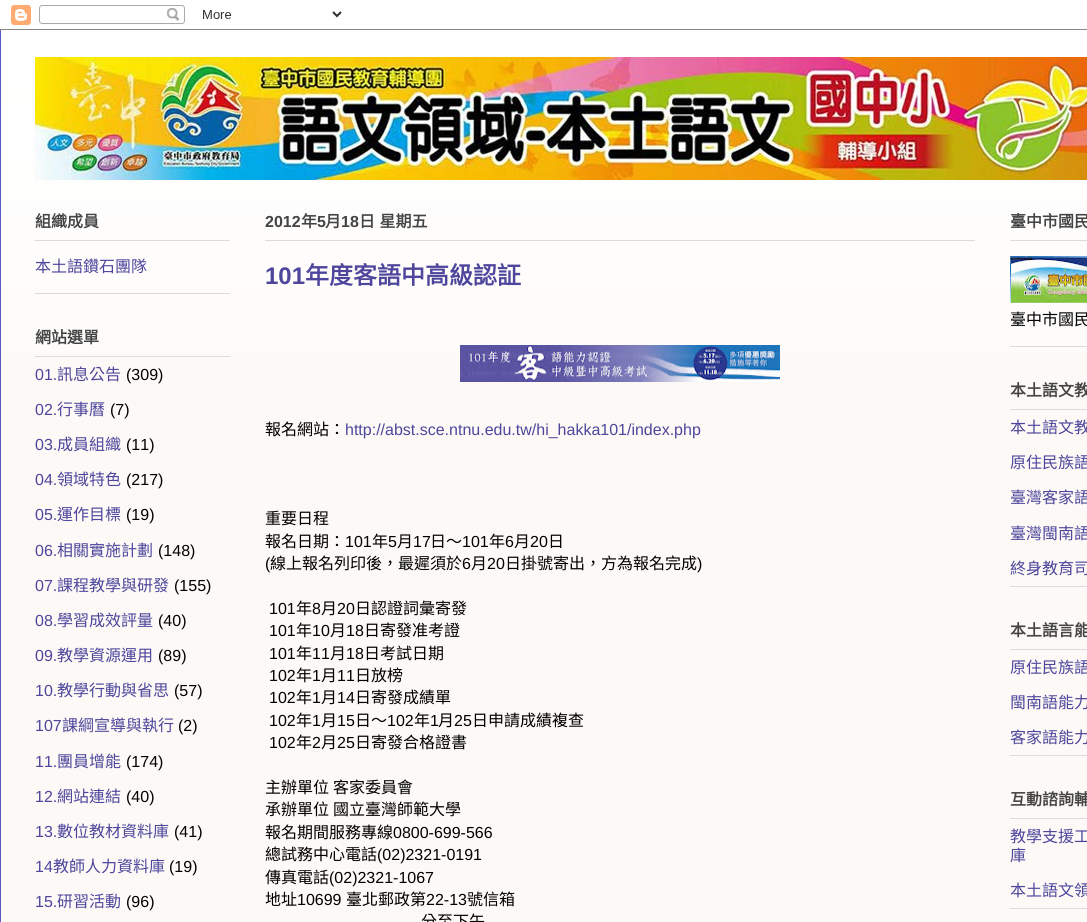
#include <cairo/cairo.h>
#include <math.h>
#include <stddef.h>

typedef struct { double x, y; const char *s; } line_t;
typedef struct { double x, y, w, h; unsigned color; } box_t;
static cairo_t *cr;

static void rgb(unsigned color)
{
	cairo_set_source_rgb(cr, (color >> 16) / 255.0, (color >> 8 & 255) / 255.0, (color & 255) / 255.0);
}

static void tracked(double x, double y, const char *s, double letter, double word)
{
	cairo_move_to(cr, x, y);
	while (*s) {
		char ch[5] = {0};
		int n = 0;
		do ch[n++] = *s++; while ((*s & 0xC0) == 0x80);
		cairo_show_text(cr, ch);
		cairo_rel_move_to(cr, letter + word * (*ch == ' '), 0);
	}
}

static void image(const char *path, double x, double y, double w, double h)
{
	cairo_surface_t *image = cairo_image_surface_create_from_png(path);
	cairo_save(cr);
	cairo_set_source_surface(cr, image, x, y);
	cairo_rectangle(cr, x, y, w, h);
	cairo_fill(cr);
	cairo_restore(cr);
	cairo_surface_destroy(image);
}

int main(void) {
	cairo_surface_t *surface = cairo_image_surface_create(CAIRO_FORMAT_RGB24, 1087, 922);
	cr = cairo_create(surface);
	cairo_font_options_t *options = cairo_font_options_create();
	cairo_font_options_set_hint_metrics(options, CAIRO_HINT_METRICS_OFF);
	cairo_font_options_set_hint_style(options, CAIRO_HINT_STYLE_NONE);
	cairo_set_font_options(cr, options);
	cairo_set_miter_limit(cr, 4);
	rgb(0xffffff);
	cairo_paint(cr);
	image("img/1.png", 0, 0, 1087, 29);
	image("img/2.png", 0, 5, 1087, 25);
	rgb(0xfcf9f6);
	cairo_rectangle(cr, 1, 37, 1086, 885);
	cairo_fill(cr);
	image("img/3.png", 1, 30, 1086, 322);
	rgb(0x5858c7);
	cairo_rectangle(cr, 0, 30, 1, 892);
	cairo_fill(cr);
	image("img/4.png", 35, 57, 1052, 123);
	{
		static const box_t items[] = {
			{35, 293, 195, 1, 0xdbdbdb},
			{35, 240, 195, 1, 0xdbdbdb},
			{35, 356, 195, 1, 0xdbdbdb},
			{265, 240, 710, 1, 0xdbdbdb},
		};
		for (size_t i = 0; i < sizeof items / sizeof *items; i++) {
			rgb(items[i].color);
			cairo_rectangle(cr, items[i].x, items[i].y, items[i].w, items[i].h);
			cairo_fill(cr);
		}
	}
	image("img/5.png", 460, 345, 320, 37);
	cairo_rectangle(cr, 1010, 346, 77, 1);
	cairo_fill(cr);
	cairo_rectangle(cr, 1010, 240, 77, 1);
	cairo_fill(cr);
	image("img/6.png", 1010, 256, 77, 47);
	{
		static const box_t items[] = {
			{1010, 586, 77, 1, 0xdbdbdb},
			{1010, 409, 77, 1, 0xdbdbdb},
			{1010, 755, 77, 1, 0xdbdbdb},
			{1010, 649, 77, 1, 0xdbdbdb},
			{1010, 908, 77, 1, 0xdbdbdb},
			{1010, 818, 77, 1, 0xdbdbdb},
		};
		for (size_t i = 0; i < sizeof items / sizeof *items; i++) {
			rgb(items[i].color);
			cairo_rectangle(cr, items[i].x, items[i].y, items[i].w, items[i].h);
			cairo_fill(cr);
		}
	}
	cairo_select_font_face(cr, "Noto Sans CJK TC", CAIRO_FONT_SLANT_NORMAL, CAIRO_FONT_WEIGHT_BOLD);
	cairo_set_font_size(cr, 16);
	rgb(0x444444);
	cairo_move_to(cr, 35, 227);
	cairo_show_text(cr, "組織成員");
	cairo_select_font_face(cr, "Noto Sans CJK TC", CAIRO_FONT_SLANT_NORMAL, CAIRO_FONT_WEIGHT_NORMAL);
	rgb(0x4d469c);
	cairo_move_to(cr, 35, 272);
	cairo_show_text(cr, "本土語鑽石團隊");
	cairo_select_font_face(cr, "Noto Sans CJK TC", CAIRO_FONT_SLANT_NORMAL, CAIRO_FONT_WEIGHT_BOLD);
	rgb(0x444444);
	cairo_move_to(cr, 35, 343);
	cairo_show_text(cr, "網站選單");
	cairo_select_font_face(cr, "Liberation Sans", CAIRO_FONT_SLANT_NORMAL, CAIRO_FONT_WEIGHT_NORMAL);
	rgb(0x4d469c);
	cairo_move_to(cr, 35, 380);
	cairo_show_text(cr, "01.");
	cairo_select_font_face(cr, "Noto Sans CJK TC", CAIRO_FONT_SLANT_NORMAL, CAIRO_FONT_WEIGHT_NORMAL);
	cairo_move_to(cr, 57, 380);
	cairo_show_text(cr, "訊息公告");
	cairo_select_font_face(cr, "Liberation Sans", CAIRO_FONT_SLANT_NORMAL, CAIRO_FONT_WEIGHT_NORMAL);
	rgb(0x000000);
	cairo_move_to(cr, 126, 380);
	cairo_show_text(cr, "(309)");
	rgb(0x4d469c);
	cairo_move_to(cr, 35, 415);
	cairo_show_text(cr, "02.");
	cairo_select_font_face(cr, "Noto Sans CJK TC", CAIRO_FONT_SLANT_NORMAL, CAIRO_FONT_WEIGHT_NORMAL);
	cairo_move_to(cr, 57, 415);
	cairo_show_text(cr, "行事曆");
	cairo_select_font_face(cr, "Liberation Sans", CAIRO_FONT_SLANT_NORMAL, CAIRO_FONT_WEIGHT_NORMAL);
	rgb(0x000000);
	cairo_move_to(cr, 110, 415);
	cairo_show_text(cr, "(7)");
	rgb(0x4d469c);
	cairo_move_to(cr, 35, 450);
	cairo_show_text(cr, "03.");
	cairo_select_font_face(cr, "Noto Sans CJK TC", CAIRO_FONT_SLANT_NORMAL, CAIRO_FONT_WEIGHT_NORMAL);
	cairo_move_to(cr, 57, 450);
	cairo_show_text(cr, "成員組織");
	cairo_select_font_face(cr, "Liberation Sans", CAIRO_FONT_SLANT_NORMAL, CAIRO_FONT_WEIGHT_NORMAL);
	rgb(0x000000);
	cairo_move_to(cr, 126, 450);
	cairo_show_text(cr, "(11)");
	rgb(0x4d469c);
	cairo_move_to(cr, 35, 485);
	cairo_show_text(cr, "04.");
	cairo_select_font_face(cr, "Noto Sans CJK TC", CAIRO_FONT_SLANT_NORMAL, CAIRO_FONT_WEIGHT_NORMAL);
	cairo_move_to(cr, 57, 485);
	cairo_show_text(cr, "領域特色");
	cairo_select_font_face(cr, "Liberation Sans", CAIRO_FONT_SLANT_NORMAL, CAIRO_FONT_WEIGHT_NORMAL);
	rgb(0x000000);
	cairo_move_to(cr, 126, 485);
	cairo_show_text(cr, "(217)");
	rgb(0x4d469c);
	cairo_move_to(cr, 35, 520);
	cairo_show_text(cr, "05.");
	cairo_select_font_face(cr, "Noto Sans CJK TC", CAIRO_FONT_SLANT_NORMAL, CAIRO_FONT_WEIGHT_NORMAL);
	cairo_move_to(cr, 57, 520);
	cairo_show_text(cr, "運作目標");
	cairo_select_font_face(cr, "Liberation Sans", CAIRO_FONT_SLANT_NORMAL, CAIRO_FONT_WEIGHT_NORMAL);
	rgb(0x000000);
	cairo_move_to(cr, 126, 520);
	cairo_show_text(cr, "(19)");
	rgb(0x4d469c);
	cairo_move_to(cr, 35, 556);
	cairo_show_text(cr, "06.");
	cairo_select_font_face(cr, "Noto Sans CJK TC", CAIRO_FONT_SLANT_NORMAL, CAIRO_FONT_WEIGHT_NORMAL);
	cairo_move_to(cr, 57, 556);
	cairo_show_text(cr, "相關實施計劃");
	cairo_select_font_face(cr, "Liberation Sans", CAIRO_FONT_SLANT_NORMAL, CAIRO_FONT_WEIGHT_NORMAL);
	rgb(0x000000);
	cairo_move_to(cr, 158, 556);
	cairo_show_text(cr, "(148)");
	rgb(0x4d469c);
	cairo_move_to(cr, 35, 591);
	cairo_show_text(cr, "07.");
	cairo_select_font_face(cr, "Noto Sans CJK TC", CAIRO_FONT_SLANT_NORMAL, CAIRO_FONT_WEIGHT_NORMAL);
	cairo_move_to(cr, 57, 591);
	cairo_show_text(cr, "課程教學與研發");
	cairo_select_font_face(cr, "Liberation Sans", CAIRO_FONT_SLANT_NORMAL, CAIRO_FONT_WEIGHT_NORMAL);
	rgb(0x000000);
	cairo_move_to(cr, 174, 591);
	cairo_show_text(cr, "(155)");
	rgb(0x4d469c);
	cairo_move_to(cr, 35, 626);
	cairo_show_text(cr, "08.");
	cairo_select_font_face(cr, "Noto Sans CJK TC", CAIRO_FONT_SLANT_NORMAL, CAIRO_FONT_WEIGHT_NORMAL);
	cairo_move_to(cr, 57, 626);
	cairo_show_text(cr, "學習成效評量");
	cairo_select_font_face(cr, "Liberation Sans", CAIRO_FONT_SLANT_NORMAL, CAIRO_FONT_WEIGHT_NORMAL);
	rgb(0x000000);
	cairo_move_to(cr, 158, 626);
	cairo_show_text(cr, "(40)");
	rgb(0x4d469c);
	cairo_move_to(cr, 35, 661);
	cairo_show_text(cr, "09.");
	cairo_select_font_face(cr, "Noto Sans CJK TC", CAIRO_FONT_SLANT_NORMAL, CAIRO_FONT_WEIGHT_NORMAL);
	cairo_move_to(cr, 57, 661);
	cairo_show_text(cr, "教學資源運用");
	cairo_select_font_face(cr, "Liberation Sans", CAIRO_FONT_SLANT_NORMAL, CAIRO_FONT_WEIGHT_NORMAL);
	rgb(0x000000);
	cairo_move_to(cr, 158, 661);
	cairo_show_text(cr, "(89)");
	rgb(0x4d469c);
	cairo_move_to(cr, 35, 696);
	cairo_show_text(cr, "10.");
	cairo_select_font_face(cr, "Noto Sans CJK TC", CAIRO_FONT_SLANT_NORMAL, CAIRO_FONT_WEIGHT_NORMAL);
	cairo_move_to(cr, 57, 696);
	cairo_show_text(cr, "教學行動與省思");
	cairo_select_font_face(cr, "Liberation Sans", CAIRO_FONT_SLANT_NORMAL, CAIRO_FONT_WEIGHT_NORMAL);
	rgb(0x000000);
	cairo_move_to(cr, 174, 696);
	cairo_show_text(cr, "(57)");
	rgb(0x4d469c);
	cairo_move_to(cr, 35, 731);
	cairo_show_text(cr, "107");
	cairo_select_font_face(cr, "Noto Sans CJK TC", CAIRO_FONT_SLANT_NORMAL, CAIRO_FONT_WEIGHT_NORMAL);
	cairo_move_to(cr, 62, 731);
	cairo_show_text(cr, "課綱宣導與執行");
	cairo_select_font_face(cr, "Liberation Sans", CAIRO_FONT_SLANT_NORMAL, CAIRO_FONT_WEIGHT_NORMAL);
	rgb(0x000000);
	cairo_move_to(cr, 178, 731);
	cairo_show_text(cr, "(2)");
	rgb(0x4d469c);
	cairo_move_to(cr, 35, 767);
	cairo_show_text(cr, "11.");
	cairo_select_font_face(cr, "Noto Sans CJK TC", CAIRO_FONT_SLANT_NORMAL, CAIRO_FONT_WEIGHT_NORMAL);
	cairo_move_to(cr, 57, 767);
	cairo_show_text(cr, "團員增能");
	cairo_select_font_face(cr, "Liberation Sans", CAIRO_FONT_SLANT_NORMAL, CAIRO_FONT_WEIGHT_NORMAL);
	rgb(0x000000);
	cairo_move_to(cr, 126, 767);
	cairo_show_text(cr, "(174)");
	rgb(0x4d469c);
	cairo_move_to(cr, 35, 802);
	cairo_show_text(cr, "12.");
	cairo_select_font_face(cr, "Noto Sans CJK TC", CAIRO_FONT_SLANT_NORMAL, CAIRO_FONT_WEIGHT_NORMAL);
	cairo_move_to(cr, 57, 802);
	cairo_show_text(cr, "網站連結");
	cairo_select_font_face(cr, "Liberation Sans", CAIRO_FONT_SLANT_NORMAL, CAIRO_FONT_WEIGHT_NORMAL);
	rgb(0x000000);
	cairo_move_to(cr, 126, 802);
	cairo_show_text(cr, "(40)");
	rgb(0x4d469c);
	cairo_move_to(cr, 35, 837);
	cairo_show_text(cr, "13.");
	cairo_select_font_face(cr, "Noto Sans CJK TC", CAIRO_FONT_SLANT_NORMAL, CAIRO_FONT_WEIGHT_NORMAL);
	cairo_move_to(cr, 57, 837);
	cairo_show_text(cr, "數位教材資料庫");
	cairo_select_font_face(cr, "Liberation Sans", CAIRO_FONT_SLANT_NORMAL, CAIRO_FONT_WEIGHT_NORMAL);
	rgb(0x000000);
	cairo_move_to(cr, 174, 837);
	cairo_show_text(cr, "(41)");
	rgb(0x4d469c);
	cairo_move_to(cr, 35, 872);
	cairo_show_text(cr, "14");
	cairo_select_font_face(cr, "Noto Sans CJK TC", CAIRO_FONT_SLANT_NORMAL, CAIRO_FONT_WEIGHT_NORMAL);
	cairo_move_to(cr, 53, 872);
	cairo_show_text(cr, "教師人力資料庫");
	cairo_select_font_face(cr, "Liberation Sans", CAIRO_FONT_SLANT_NORMAL, CAIRO_FONT_WEIGHT_NORMAL);
	rgb(0x000000);
	cairo_move_to(cr, 169, 872);
	cairo_show_text(cr, "(19)");
	rgb(0x4d469c);
	cairo_move_to(cr, 35, 907);
	cairo_show_text(cr, "15.");
	cairo_select_font_face(cr, "Noto Sans CJK TC", CAIRO_FONT_SLANT_NORMAL, CAIRO_FONT_WEIGHT_NORMAL);
	cairo_move_to(cr, 57, 907);
	cairo_show_text(cr, "研習活動");
	cairo_select_font_face(cr, "Liberation Sans", CAIRO_FONT_SLANT_NORMAL, CAIRO_FONT_WEIGHT_NORMAL);
	rgb(0x000000);
	cairo_move_to(cr, 126, 907);
	cairo_show_text(cr, "(96)");
	cairo_select_font_face(cr, "Liberation Sans", CAIRO_FONT_SLANT_NORMAL, CAIRO_FONT_WEIGHT_BOLD);
	rgb(0x444444);
	cairo_move_to(cr, 265, 227);
	cairo_show_text(cr, "2012");
	cairo_select_font_face(cr, "Noto Sans CJK TC", CAIRO_FONT_SLANT_NORMAL, CAIRO_FONT_WEIGHT_BOLD);
	cairo_move_to(cr, 301, 227);
	cairo_show_text(cr, "年");
	cairo_select_font_face(cr, "Liberation Sans", CAIRO_FONT_SLANT_NORMAL, CAIRO_FONT_WEIGHT_BOLD);
	cairo_move_to(cr, 317, 227);
	cairo_show_text(cr, "5");
	cairo_select_font_face(cr, "Noto Sans CJK TC", CAIRO_FONT_SLANT_NORMAL, CAIRO_FONT_WEIGHT_BOLD);
	cairo_move_to(cr, 325, 227);
	cairo_show_text(cr, "月");
	cairo_select_font_face(cr, "Liberation Sans", CAIRO_FONT_SLANT_NORMAL, CAIRO_FONT_WEIGHT_BOLD);
	cairo_move_to(cr, 341, 227);
	cairo_show_text(cr, "18");
	cairo_select_font_face(cr, "Noto Sans CJK TC", CAIRO_FONT_SLANT_NORMAL, CAIRO_FONT_WEIGHT_BOLD);
	tracked(359, 227, "日 星期五", 0, 1);
	cairo_select_font_face(cr, "Liberation Sans", CAIRO_FONT_SLANT_NORMAL, CAIRO_FONT_WEIGHT_BOLD);
	cairo_set_font_size(cr, 24);
	rgb(0x4d469c);
	cairo_move_to(cr, 265, 284);
	cairo_show_text(cr, "101");
	cairo_select_font_face(cr, "Noto Sans CJK TC", CAIRO_FONT_SLANT_NORMAL, CAIRO_FONT_WEIGHT_BOLD);
	cairo_move_to(cr, 305, 284);
	cairo_show_text(cr, "年度客語中高級認証");
	cairo_select_font_face(cr, "Noto Sans CJK TC", CAIRO_FONT_SLANT_NORMAL, CAIRO_FONT_WEIGHT_NORMAL);
	cairo_set_font_size(cr, 16);
	rgb(0x000000);
	cairo_move_to(cr, 265, 435);
	cairo_show_text(cr, "報名網站：");
	cairo_select_font_face(cr, "Liberation Sans", CAIRO_FONT_SLANT_NORMAL, CAIRO_FONT_WEIGHT_NORMAL);
	rgb(0x4d469c);
	cairo_move_to(cr, 345, 435);
	cairo_show_text(cr, "http://abst.sce.ntnu.edu.tw/hi_hakka101/index.php");
	cairo_select_font_face(cr, "Noto Sans CJK TC", CAIRO_FONT_SLANT_NORMAL, CAIRO_FONT_WEIGHT_NORMAL);
	rgb(0x000000);
	cairo_move_to(cr, 265, 524);
	cairo_show_text(cr, "重要日程");
	cairo_move_to(cr, 265, 547);
	cairo_show_text(cr, "報名日期：");
	cairo_select_font_face(cr, "Liberation Sans", CAIRO_FONT_SLANT_NORMAL, CAIRO_FONT_WEIGHT_NORMAL);
	cairo_move_to(cr, 345, 547);
	cairo_show_text(cr, "101");
	cairo_select_font_face(cr, "Noto Sans CJK TC", CAIRO_FONT_SLANT_NORMAL, CAIRO_FONT_WEIGHT_NORMAL);
	cairo_move_to(cr, 372, 547);
	cairo_show_text(cr, "年");
	cairo_select_font_face(cr, "Liberation Sans", CAIRO_FONT_SLANT_NORMAL, CAIRO_FONT_WEIGHT_NORMAL);
	cairo_move_to(cr, 388, 547);
	cairo_show_text(cr, "5");
	cairo_select_font_face(cr, "Noto Sans CJK TC", CAIRO_FONT_SLANT_NORMAL, CAIRO_FONT_WEIGHT_NORMAL);
	cairo_move_to(cr, 397, 547);
	cairo_show_text(cr, "月");
	cairo_select_font_face(cr, "Liberation Sans", CAIRO_FONT_SLANT_NORMAL, CAIRO_FONT_WEIGHT_NORMAL);
	cairo_move_to(cr, 413, 547);
	cairo_show_text(cr, "17");
	cairo_select_font_face(cr, "Noto Sans CJK TC", CAIRO_FONT_SLANT_NORMAL, CAIRO_FONT_WEIGHT_NORMAL);
	cairo_move_to(cr, 430, 547);
	cairo_show_text(cr, "日～");
	cairo_select_font_face(cr, "Liberation Sans", CAIRO_FONT_SLANT_NORMAL, CAIRO_FONT_WEIGHT_NORMAL);
	cairo_move_to(cr, 462, 547);
	cairo_show_text(cr, "101");
	cairo_select_font_face(cr, "Noto Sans CJK TC", CAIRO_FONT_SLANT_NORMAL, CAIRO_FONT_WEIGHT_NORMAL);
	cairo_move_to(cr, 489, 547);
	cairo_show_text(cr, "年");
	cairo_select_font_face(cr, "Liberation Sans", CAIRO_FONT_SLANT_NORMAL, CAIRO_FONT_WEIGHT_NORMAL);
	cairo_move_to(cr, 505, 547);
	cairo_show_text(cr, "6");
	cairo_select_font_face(cr, "Noto Sans CJK TC", CAIRO_FONT_SLANT_NORMAL, CAIRO_FONT_WEIGHT_NORMAL);
	cairo_move_to(cr, 514, 547);
	cairo_show_text(cr, "月");
	cairo_select_font_face(cr, "Liberation Sans", CAIRO_FONT_SLANT_NORMAL, CAIRO_FONT_WEIGHT_NORMAL);
	cairo_move_to(cr, 530, 547);
	cairo_show_text(cr, "20");
	cairo_select_font_face(cr, "Noto Sans CJK TC", CAIRO_FONT_SLANT_NORMAL, CAIRO_FONT_WEIGHT_NORMAL);
	cairo_move_to(cr, 548, 547);
	cairo_show_text(cr, "日");
	cairo_select_font_face(cr, "Liberation Sans", CAIRO_FONT_SLANT_NORMAL, CAIRO_FONT_WEIGHT_NORMAL);
	cairo_move_to(cr, 265, 569);
	cairo_show_text(cr, "(");
	cairo_select_font_face(cr, "Noto Sans CJK TC", CAIRO_FONT_SLANT_NORMAL, CAIRO_FONT_WEIGHT_NORMAL);
	cairo_move_to(cr, 270, 569);
	cairo_show_text(cr, "線上報名列印後，最遲須於");
	cairo_select_font_face(cr, "Liberation Sans", CAIRO_FONT_SLANT_NORMAL, CAIRO_FONT_WEIGHT_NORMAL);
	cairo_move_to(cr, 462, 569);
	cairo_show_text(cr, "6");
	cairo_select_font_face(cr, "Noto Sans CJK TC", CAIRO_FONT_SLANT_NORMAL, CAIRO_FONT_WEIGHT_NORMAL);
	cairo_move_to(cr, 471, 569);
	cairo_show_text(cr, "月");
	cairo_select_font_face(cr, "Liberation Sans", CAIRO_FONT_SLANT_NORMAL, CAIRO_FONT_WEIGHT_NORMAL);
	cairo_move_to(cr, 487, 569);
	cairo_show_text(cr, "20");
	cairo_select_font_face(cr, "Noto Sans CJK TC", CAIRO_FONT_SLANT_NORMAL, CAIRO_FONT_WEIGHT_NORMAL);
	cairo_move_to(cr, 505, 569);
	cairo_show_text(cr, "日掛號寄出，方為報名完成");
	cairo_select_font_face(cr, "Liberation Sans", CAIRO_FONT_SLANT_NORMAL, CAIRO_FONT_WEIGHT_NORMAL);
	cairo_move_to(cr, 697, 569);
	cairo_show_text(cr, ")");
	cairo_move_to(cr, 269, 614);
	cairo_show_text(cr, "101");
	cairo_select_font_face(cr, "Noto Sans CJK TC", CAIRO_FONT_SLANT_NORMAL, CAIRO_FONT_WEIGHT_NORMAL);
	cairo_move_to(cr, 296, 614);
	cairo_show_text(cr, "年");
	cairo_select_font_face(cr, "Liberation Sans", CAIRO_FONT_SLANT_NORMAL, CAIRO_FONT_WEIGHT_NORMAL);
	cairo_move_to(cr, 312, 614);
	cairo_show_text(cr, "8");
	cairo_select_font_face(cr, "Noto Sans CJK TC", CAIRO_FONT_SLANT_NORMAL, CAIRO_FONT_WEIGHT_NORMAL);
	cairo_move_to(cr, 321, 614);
	cairo_show_text(cr, "月");
	cairo_select_font_face(cr, "Liberation Sans", CAIRO_FONT_SLANT_NORMAL, CAIRO_FONT_WEIGHT_NORMAL);
	cairo_move_to(cr, 337, 614);
	cairo_show_text(cr, "20");
	cairo_select_font_face(cr, "Noto Sans CJK TC", CAIRO_FONT_SLANT_NORMAL, CAIRO_FONT_WEIGHT_NORMAL);
	cairo_move_to(cr, 355, 614);
	cairo_show_text(cr, "日認證詞彙寄發");
	cairo_select_font_face(cr, "Liberation Sans", CAIRO_FONT_SLANT_NORMAL, CAIRO_FONT_WEIGHT_NORMAL);
	cairo_move_to(cr, 269, 636);
	cairo_show_text(cr, "101");
	cairo_select_font_face(cr, "Noto Sans CJK TC", CAIRO_FONT_SLANT_NORMAL, CAIRO_FONT_WEIGHT_NORMAL);
	cairo_move_to(cr, 296, 636);
	cairo_show_text(cr, "年");
	cairo_select_font_face(cr, "Liberation Sans", CAIRO_FONT_SLANT_NORMAL, CAIRO_FONT_WEIGHT_NORMAL);
	cairo_move_to(cr, 312, 636);
	cairo_show_text(cr, "10");
	cairo_select_font_face(cr, "Noto Sans CJK TC", CAIRO_FONT_SLANT_NORMAL, CAIRO_FONT_WEIGHT_NORMAL);
	cairo_move_to(cr, 330, 636);
	cairo_show_text(cr, "月");
	cairo_select_font_face(cr, "Liberation Sans", CAIRO_FONT_SLANT_NORMAL, CAIRO_FONT_WEIGHT_NORMAL);
	cairo_move_to(cr, 346, 636);
	cairo_show_text(cr, "18");
	cairo_select_font_face(cr, "Noto Sans CJK TC", CAIRO_FONT_SLANT_NORMAL, CAIRO_FONT_WEIGHT_NORMAL);
	cairo_move_to(cr, 364, 636);
	cairo_show_text(cr, "日寄發准考證");
	cairo_select_font_face(cr, "Liberation Sans", CAIRO_FONT_SLANT_NORMAL, CAIRO_FONT_WEIGHT_NORMAL);
	cairo_move_to(cr, 269, 659);
	cairo_show_text(cr, "101");
	cairo_select_font_face(cr, "Noto Sans CJK TC", CAIRO_FONT_SLANT_NORMAL, CAIRO_FONT_WEIGHT_NORMAL);
	cairo_move_to(cr, 296, 659);
	cairo_show_text(cr, "年");
	cairo_select_font_face(cr, "Liberation Sans", CAIRO_FONT_SLANT_NORMAL, CAIRO_FONT_WEIGHT_NORMAL);
	cairo_move_to(cr, 312, 659);
	cairo_show_text(cr, "11");
	cairo_select_font_face(cr, "Noto Sans CJK TC", CAIRO_FONT_SLANT_NORMAL, CAIRO_FONT_WEIGHT_NORMAL);
	cairo_move_to(cr, 330, 659);
	cairo_show_text(cr, "月");
	cairo_select_font_face(cr, "Liberation Sans", CAIRO_FONT_SLANT_NORMAL, CAIRO_FONT_WEIGHT_NORMAL);
	cairo_move_to(cr, 346, 659);
	cairo_show_text(cr, "18");
	cairo_select_font_face(cr, "Noto Sans CJK TC", CAIRO_FONT_SLANT_NORMAL, CAIRO_FONT_WEIGHT_NORMAL);
	cairo_move_to(cr, 364, 659);
	cairo_show_text(cr, "日考試日期");
	cairo_select_font_face(cr, "Liberation Sans", CAIRO_FONT_SLANT_NORMAL, CAIRO_FONT_WEIGHT_NORMAL);
	cairo_move_to(cr, 269, 681);
	cairo_show_text(cr, "102");
	cairo_select_font_face(cr, "Noto Sans CJK TC", CAIRO_FONT_SLANT_NORMAL, CAIRO_FONT_WEIGHT_NORMAL);
	cairo_move_to(cr, 296, 681);
	cairo_show_text(cr, "年");
	cairo_select_font_face(cr, "Liberation Sans", CAIRO_FONT_SLANT_NORMAL, CAIRO_FONT_WEIGHT_NORMAL);
	cairo_move_to(cr, 312, 681);
	cairo_show_text(cr, "1");
	cairo_select_font_face(cr, "Noto Sans CJK TC", CAIRO_FONT_SLANT_NORMAL, CAIRO_FONT_WEIGHT_NORMAL);
	cairo_move_to(cr, 321, 681);
	cairo_show_text(cr, "月");
	cairo_select_font_face(cr, "Liberation Sans", CAIRO_FONT_SLANT_NORMAL, CAIRO_FONT_WEIGHT_NORMAL);
	cairo_move_to(cr, 337, 681);
	cairo_show_text(cr, "11");
	cairo_select_font_face(cr, "Noto Sans CJK TC", CAIRO_FONT_SLANT_NORMAL, CAIRO_FONT_WEIGHT_NORMAL);
	cairo_move_to(cr, 355, 681);
	cairo_show_text(cr, "日放榜");
	cairo_select_font_face(cr, "Liberation Sans", CAIRO_FONT_SLANT_NORMAL, CAIRO_FONT_WEIGHT_NORMAL);
	cairo_move_to(cr, 269, 703);
	cairo_show_text(cr, "102");
	cairo_select_font_face(cr, "Noto Sans CJK TC", CAIRO_FONT_SLANT_NORMAL, CAIRO_FONT_WEIGHT_NORMAL);
	cairo_move_to(cr, 296, 703);
	cairo_show_text(cr, "年");
	cairo_select_font_face(cr, "Liberation Sans", CAIRO_FONT_SLANT_NORMAL, CAIRO_FONT_WEIGHT_NORMAL);
	cairo_move_to(cr, 312, 703);
	cairo_show_text(cr, "1");
	cairo_select_font_face(cr, "Noto Sans CJK TC", CAIRO_FONT_SLANT_NORMAL, CAIRO_FONT_WEIGHT_NORMAL);
	cairo_move_to(cr, 321, 703);
	cairo_show_text(cr, "月");
	cairo_select_font_face(cr, "Liberation Sans", CAIRO_FONT_SLANT_NORMAL, CAIRO_FONT_WEIGHT_NORMAL);
	cairo_move_to(cr, 337, 703);
	cairo_show_text(cr, "14");
	cairo_select_font_face(cr, "Noto Sans CJK TC", CAIRO_FONT_SLANT_NORMAL, CAIRO_FONT_WEIGHT_NORMAL);
	cairo_move_to(cr, 355, 703);
	cairo_show_text(cr, "日寄發成績單");
	cairo_select_font_face(cr, "Liberation Sans", CAIRO_FONT_SLANT_NORMAL, CAIRO_FONT_WEIGHT_NORMAL);
	cairo_move_to(cr, 269, 726);
	cairo_show_text(cr, "102");
	cairo_select_font_face(cr, "Noto Sans CJK TC", CAIRO_FONT_SLANT_NORMAL, CAIRO_FONT_WEIGHT_NORMAL);
	cairo_move_to(cr, 296, 726);
	cairo_show_text(cr, "年");
	cairo_select_font_face(cr, "Liberation Sans", CAIRO_FONT_SLANT_NORMAL, CAIRO_FONT_WEIGHT_NORMAL);
	cairo_move_to(cr, 312, 726);
	cairo_show_text(cr, "1");
	cairo_select_font_face(cr, "Noto Sans CJK TC", CAIRO_FONT_SLANT_NORMAL, CAIRO_FONT_WEIGHT_NORMAL);
	cairo_move_to(cr, 321, 726);
	cairo_show_text(cr, "月");
	cairo_select_font_face(cr, "Liberation Sans", CAIRO_FONT_SLANT_NORMAL, CAIRO_FONT_WEIGHT_NORMAL);
	cairo_move_to(cr, 337, 726);
	cairo_show_text(cr, "15");
	cairo_select_font_face(cr, "Noto Sans CJK TC", CAIRO_FONT_SLANT_NORMAL, CAIRO_FONT_WEIGHT_NORMAL);
	cairo_move_to(cr, 355, 726);
	cairo_show_text(cr, "日～");
	cairo_select_font_face(cr, "Liberation Sans", CAIRO_FONT_SLANT_NORMAL, CAIRO_FONT_WEIGHT_NORMAL);
	cairo_move_to(cr, 387, 726);
	cairo_show_text(cr, "102");
	cairo_select_font_face(cr, "Noto Sans CJK TC", CAIRO_FONT_SLANT_NORMAL, CAIRO_FONT_WEIGHT_NORMAL);
	cairo_move_to(cr, 414, 726);
	cairo_show_text(cr, "年");
	cairo_select_font_face(cr, "Liberation Sans", CAIRO_FONT_SLANT_NORMAL, CAIRO_FONT_WEIGHT_NORMAL);
	cairo_move_to(cr, 430, 726);
	cairo_show_text(cr, "1");
	cairo_select_font_face(cr, "Noto Sans CJK TC", CAIRO_FONT_SLANT_NORMAL, CAIRO_FONT_WEIGHT_NORMAL);
	cairo_move_to(cr, 438, 726);
	cairo_show_text(cr, "月");
	cairo_select_font_face(cr, "Liberation Sans", CAIRO_FONT_SLANT_NORMAL, CAIRO_FONT_WEIGHT_NORMAL);
	cairo_move_to(cr, 454, 726);
	cairo_show_text(cr, "25");
	cairo_select_font_face(cr, "Noto Sans CJK TC", CAIRO_FONT_SLANT_NORMAL, CAIRO_FONT_WEIGHT_NORMAL);
	cairo_move_to(cr, 472, 726);
	cairo_show_text(cr, "日申請成績複查");
	cairo_select_font_face(cr, "Liberation Sans", CAIRO_FONT_SLANT_NORMAL, CAIRO_FONT_WEIGHT_NORMAL);
	cairo_move_to(cr, 269, 748);
	cairo_show_text(cr, "102");
	cairo_select_font_face(cr, "Noto Sans CJK TC", CAIRO_FONT_SLANT_NORMAL, CAIRO_FONT_WEIGHT_NORMAL);
	cairo_move_to(cr, 296, 748);
	cairo_show_text(cr, "年");
	cairo_select_font_face(cr, "Liberation Sans", CAIRO_FONT_SLANT_NORMAL, CAIRO_FONT_WEIGHT_NORMAL);
	cairo_move_to(cr, 312, 748);
	cairo_show_text(cr, "2");
	cairo_select_font_face(cr, "Noto Sans CJK TC", CAIRO_FONT_SLANT_NORMAL, CAIRO_FONT_WEIGHT_NORMAL);
	cairo_move_to(cr, 321, 748);
	cairo_show_text(cr, "月");
	cairo_select_font_face(cr, "Liberation Sans", CAIRO_FONT_SLANT_NORMAL, CAIRO_FONT_WEIGHT_NORMAL);
	cairo_move_to(cr, 337, 748);
	cairo_show_text(cr, "25");
	cairo_select_font_face(cr, "Noto Sans CJK TC", CAIRO_FONT_SLANT_NORMAL, CAIRO_FONT_WEIGHT_NORMAL);
	{
		static const line_t items[] = {
			{355, 748, "日寄發合格證書"},
			{265, 793, "主辦單位"},
			{333, 793, "客家委員會"},
			{265, 815, "承辦單位"},
			{333, 815, "國立臺灣師範大學"},
			{265, 838, "報名期間服務專線"},
		};
		for (size_t i = 0; i < sizeof items / sizeof *items; i++) {
			cairo_move_to(cr, items[i].x, items[i].y);
			cairo_show_text(cr, items[i].s);
		}
	}
	cairo_select_font_face(cr, "Liberation Sans", CAIRO_FONT_SLANT_NORMAL, CAIRO_FONT_WEIGHT_NORMAL);
	cairo_move_to(cr, 393, 838);
	cairo_show_text(cr, "0800-699-566");
	cairo_select_font_face(cr, "Noto Sans CJK TC", CAIRO_FONT_SLANT_NORMAL, CAIRO_FONT_WEIGHT_NORMAL);
	cairo_move_to(cr, 265, 860);
	cairo_show_text(cr, "總試務中心電話");
	cairo_select_font_face(cr, "Liberation Sans", CAIRO_FONT_SLANT_NORMAL, CAIRO_FONT_WEIGHT_NORMAL);
	cairo_move_to(cr, 377, 860);
	cairo_show_text(cr, "(02)2321-0191");
	cairo_select_font_face(cr, "Noto Sans CJK TC", CAIRO_FONT_SLANT_NORMAL, CAIRO_FONT_WEIGHT_NORMAL);
	cairo_move_to(cr, 265, 883);
	cairo_show_text(cr, "傳真電話");
	cairo_select_font_face(cr, "Liberation Sans", CAIRO_FONT_SLANT_NORMAL, CAIRO_FONT_WEIGHT_NORMAL);
	cairo_move_to(cr, 329, 883);
	cairo_show_text(cr, "(02)2321-1067");
	cairo_select_font_face(cr, "Noto Sans CJK TC", CAIRO_FONT_SLANT_NORMAL, CAIRO_FONT_WEIGHT_NORMAL);
	cairo_move_to(cr, 265, 905);
	cairo_show_text(cr, "地址");
	cairo_select_font_face(cr, "Liberation Sans", CAIRO_FONT_SLANT_NORMAL, CAIRO_FONT_WEIGHT_NORMAL);
	cairo_move_to(cr, 297, 905);
	cairo_show_text(cr, "10699");
	cairo_select_font_face(cr, "Noto Sans CJK TC", CAIRO_FONT_SLANT_NORMAL, CAIRO_FONT_WEIGHT_NORMAL);
	cairo_move_to(cr, 346, 905);
	cairo_show_text(cr, "臺北郵政第");
	cairo_select_font_face(cr, "Liberation Sans", CAIRO_FONT_SLANT_NORMAL, CAIRO_FONT_WEIGHT_NORMAL);
	cairo_move_to(cr, 426, 905);
	cairo_show_text(cr, "22-13");
	cairo_select_font_face(cr, "Noto Sans CJK TC", CAIRO_FONT_SLANT_NORMAL, CAIRO_FONT_WEIGHT_NORMAL);
	cairo_move_to(cr, 467, 905);
	cairo_show_text(cr, "號信箱");
	cairo_move_to(cr, 421, 927);
	cairo_show_text(cr, "分至下午");
	cairo_select_font_face(cr, "Noto Sans CJK TC", CAIRO_FONT_SLANT_NORMAL, CAIRO_FONT_WEIGHT_BOLD);
	rgb(0x444444);
	cairo_move_to(cr, 1010, 227);
	cairo_show_text(cr, "臺中市國民");
	cairo_select_font_face(cr, "Noto Sans CJK TC", CAIRO_FONT_SLANT_NORMAL, CAIRO_FONT_WEIGHT_NORMAL);
	rgb(0x000000);
	cairo_move_to(cr, 1010, 325);
	cairo_show_text(cr, "臺中市國民");
	cairo_select_font_face(cr, "Noto Sans CJK TC", CAIRO_FONT_SLANT_NORMAL, CAIRO_FONT_WEIGHT_BOLD);
	rgb(0x444444);
	cairo_move_to(cr, 1010, 396);
	cairo_show_text(cr, "本土語文教");
	cairo_select_font_face(cr, "Noto Sans CJK TC", CAIRO_FONT_SLANT_NORMAL, CAIRO_FONT_WEIGHT_NORMAL);
	rgb(0x4d469c);
	{
		static const line_t items[] = {
			{1010, 433, "本土語文教"},
			{1010, 468, "原住民族語"},
			{1010, 503, "臺灣客家語"},
			{1010, 539, "臺灣閩南語"},
			{1010, 574, "終身教育司"},
		};
		for (size_t i = 0; i < sizeof items / sizeof *items; i++) {
			cairo_move_to(cr, items[i].x, items[i].y);
			cairo_show_text(cr, items[i].s);
		}
	}
	cairo_select_font_face(cr, "Noto Sans CJK TC", CAIRO_FONT_SLANT_NORMAL, CAIRO_FONT_WEIGHT_BOLD);
	rgb(0x444444);
	cairo_move_to(cr, 1010, 636);
	cairo_show_text(cr, "本土語言能");
	cairo_select_font_face(cr, "Noto Sans CJK TC", CAIRO_FONT_SLANT_NORMAL, CAIRO_FONT_WEIGHT_NORMAL);
	rgb(0x4d469c);
	{
		static const line_t items[] = {
			{1010, 673, "原住民族語"},
			{1010, 708, "閩南語能力"},
			{1010, 743, "客家語能力"},
		};
		for (size_t i = 0; i < sizeof items / sizeof *items; i++) {
			cairo_move_to(cr, items[i].x, items[i].y);
			cairo_show_text(cr, items[i].s);
		}
	}
	cairo_select_font_face(cr, "Noto Sans CJK TC", CAIRO_FONT_SLANT_NORMAL, CAIRO_FONT_WEIGHT_BOLD);
	rgb(0x444444);
	cairo_move_to(cr, 1010, 805);
	cairo_show_text(cr, "互動諮詢輔");
	cairo_select_font_face(cr, "Noto Sans CJK TC", CAIRO_FONT_SLANT_NORMAL, CAIRO_FONT_WEIGHT_NORMAL);
	rgb(0x4d469c);
	{
		static const line_t items[] = {
			{1010, 842, "教學支援工"},
			{1010, 861, "庫"},
			{1010, 896, "本土語文領"},
		};
		for (size_t i = 0; i < sizeof items / sizeof *items; i++) {
			cairo_move_to(cr, items[i].x, items[i].y);
			cairo_show_text(cr, items[i].s);
		}
	}
	cairo_surface_write_to_png(surface, "page.png");
	cairo_font_options_destroy(options);
	cairo_destroy(cr);
	cairo_surface_destroy(surface);
	return 0;
}
